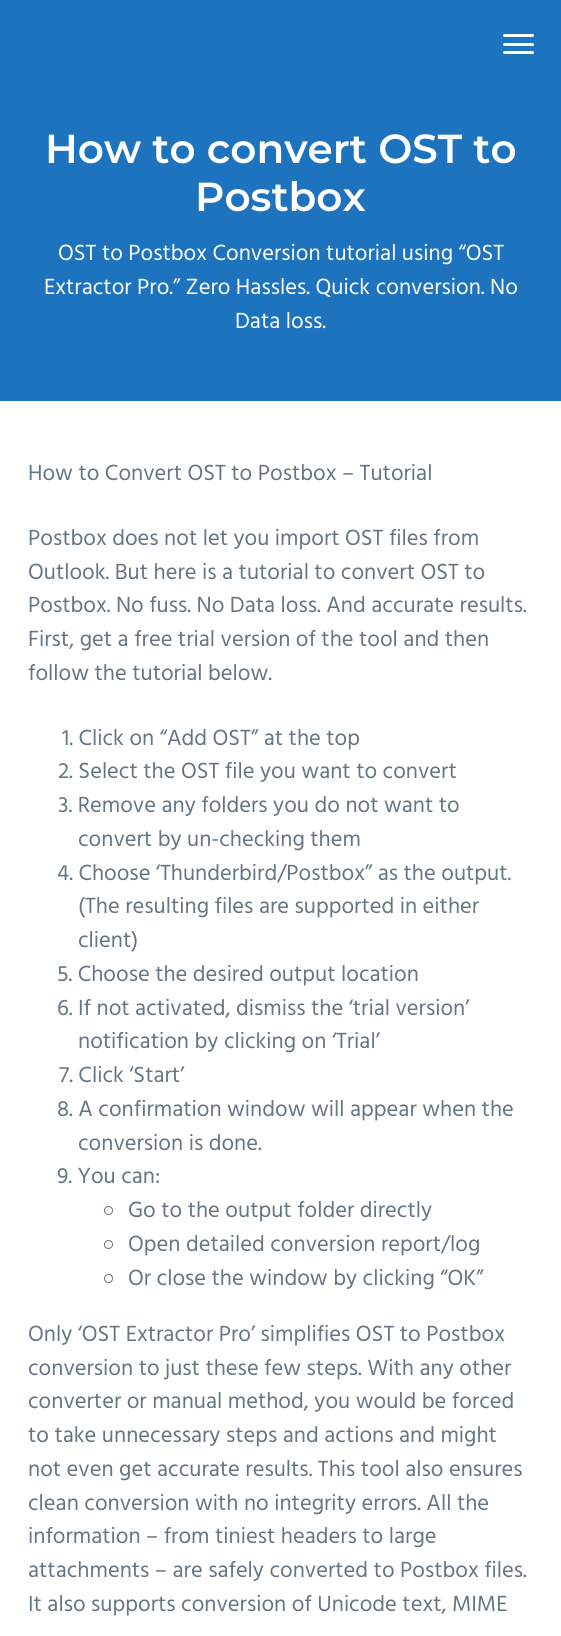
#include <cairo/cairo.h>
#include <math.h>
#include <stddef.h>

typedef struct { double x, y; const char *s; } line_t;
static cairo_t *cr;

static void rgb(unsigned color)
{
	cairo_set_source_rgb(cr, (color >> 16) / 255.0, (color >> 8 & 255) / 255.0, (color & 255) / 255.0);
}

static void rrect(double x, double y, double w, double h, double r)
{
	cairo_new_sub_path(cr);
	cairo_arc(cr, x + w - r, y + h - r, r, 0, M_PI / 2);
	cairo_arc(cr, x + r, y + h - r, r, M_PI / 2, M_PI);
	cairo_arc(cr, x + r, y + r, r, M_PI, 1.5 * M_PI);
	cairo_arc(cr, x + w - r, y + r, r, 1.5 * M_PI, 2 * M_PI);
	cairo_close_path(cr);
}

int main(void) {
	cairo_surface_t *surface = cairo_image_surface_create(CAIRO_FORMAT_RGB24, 561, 1636);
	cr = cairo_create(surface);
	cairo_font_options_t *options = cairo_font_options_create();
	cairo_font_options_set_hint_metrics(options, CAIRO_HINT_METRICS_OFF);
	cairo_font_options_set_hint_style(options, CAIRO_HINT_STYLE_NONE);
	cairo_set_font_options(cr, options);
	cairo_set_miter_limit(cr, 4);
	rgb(0xffffff);
	cairo_paint(cr);
	rgb(0x1e73be);
	cairo_rectangle(cr, 0, 0, 561, 401);
	cairo_fill(cr);
	rgb(0xffffff);
	rrect(503, 43, 31, 3, 1.5);
	cairo_fill(cr);
	rrect(503, 34, 31, 3, 1.5);
	cairo_fill(cr);
	rrect(503, 51, 31, 3, 1.5);
	cairo_fill(cr);
	cairo_arc(cr, 108.5, 1210.5, 4, 0, 2 * M_PI);
	rgb(0x647585);
	cairo_set_line_width(cr, 1);
	cairo_stroke(cr);
	cairo_arc(cr, 108.5, 1244.5, 4, 0, 2 * M_PI);
	cairo_stroke(cr);
	cairo_arc(cr, 108.5, 1278.5, 4, 0, 2 * M_PI);
	cairo_stroke(cr);
	cairo_select_font_face(cr, "Montserrat Thin", CAIRO_FONT_SLANT_NORMAL, CAIRO_FONT_WEIGHT_NORMAL);
	cairo_set_font_size(cr, 40.5);
	rgb(0xffffff);
	cairo_move_to(cr, 45, 163);
	cairo_show_text(cr, "How to convert OST to");
	cairo_move_to(cr, 195, 211);
	cairo_show_text(cr, "Postbox");
	cairo_select_font_face(cr, "Hind", CAIRO_FONT_SLANT_NORMAL, CAIRO_FONT_WEIGHT_NORMAL);
	cairo_set_font_size(cr, 22.5);
	{
		static const line_t items[] = {
			{58, 260, "OST to Postbox Conversion tutorial using “OST"},
			{44, 294, "Extractor Pro.” Zero Hassles. Quick conversion. No"},
			{235, 328, "Data loss."},
		};
		for (size_t i = 0; i < sizeof items / sizeof *items; i++) {
			cairo_move_to(cr, items[i].x, items[i].y);
			cairo_show_text(cr, items[i].s);
		}
	}
	rgb(0x647585);
	{
		static const line_t items[] = {
			{28, 480, "How to Convert OST to Postbox – Tutorial"},
			{28, 545, "Postbox does not let you import OST files from"},
			{28, 579, "Outlook. But here is a tutorial to convert OST to"},
			{28, 612, "Postbox. No fuss. No Data loss. And accurate results."},
			{28, 646, "First, get a free trial version of the tool and then"},
			{28, 680, "follow the tutorial below."},
			{62, 745, "1. Click on “Add OST” at the top"},
			{58, 778, "2. Select the OST file you want to convert"},
			{58, 812, "3. Remove any folders you do not want to"},
			{78, 846, "convert by un-checking them"},
			{57, 880, "4. Choose ‘Thunderbird/Postbox” as the output."},
			{78, 913, "(The resulting files are supported in either"},
			{78, 947, "client)"},
			{57, 981, "5. Choose the desired output location"},
			{57, 1015, "6. If not activated, dismiss the ‘trial version’"},
			{78, 1048, "notification by clicking on ‘Trial’"},
			{59, 1082, "7. Click ‘Start’"},
			{57, 1116, "8. A confirmation window will appear when the"},
			{78, 1150, "conversion is done."},
			{57, 1183, "9. You can:"},
			{128, 1217, "Go to the output folder directly"},
			{128, 1251, "Open detailed conversion report/log"},
			{128, 1285, "Or close the window by clicking “OK”"},
			{28, 1341, "Only ‘OST Extractor Pro’ simplifies OST to Postbox"},
			{28, 1375, "conversion to just these few steps. With any other"},
			{28, 1408, "converter or manual method, you would be forced"},
			{28, 1442, "to take unnecessary steps and actions and might"},
			{28, 1476, "not even get accurate results. This tool also ensures"},
			{28, 1510, "clean conversion with no integrity errors. All the"},
			{28, 1543, "information – from tiniest headers to large"},
			{28, 1577, "attachments – are safely converted to Postbox files."},
			{28, 1611, "It also supports conversion of Unicode text, MIME"},
		};
		for (size_t i = 0; i < sizeof items / sizeof *items; i++) {
			cairo_move_to(cr, items[i].x, items[i].y);
			cairo_show_text(cr, items[i].s);
		}
	}
	cairo_surface_write_to_png(surface, "page.png");
	cairo_font_options_destroy(options);
	cairo_destroy(cr);
	cairo_surface_destroy(surface);
	return 0;
}
